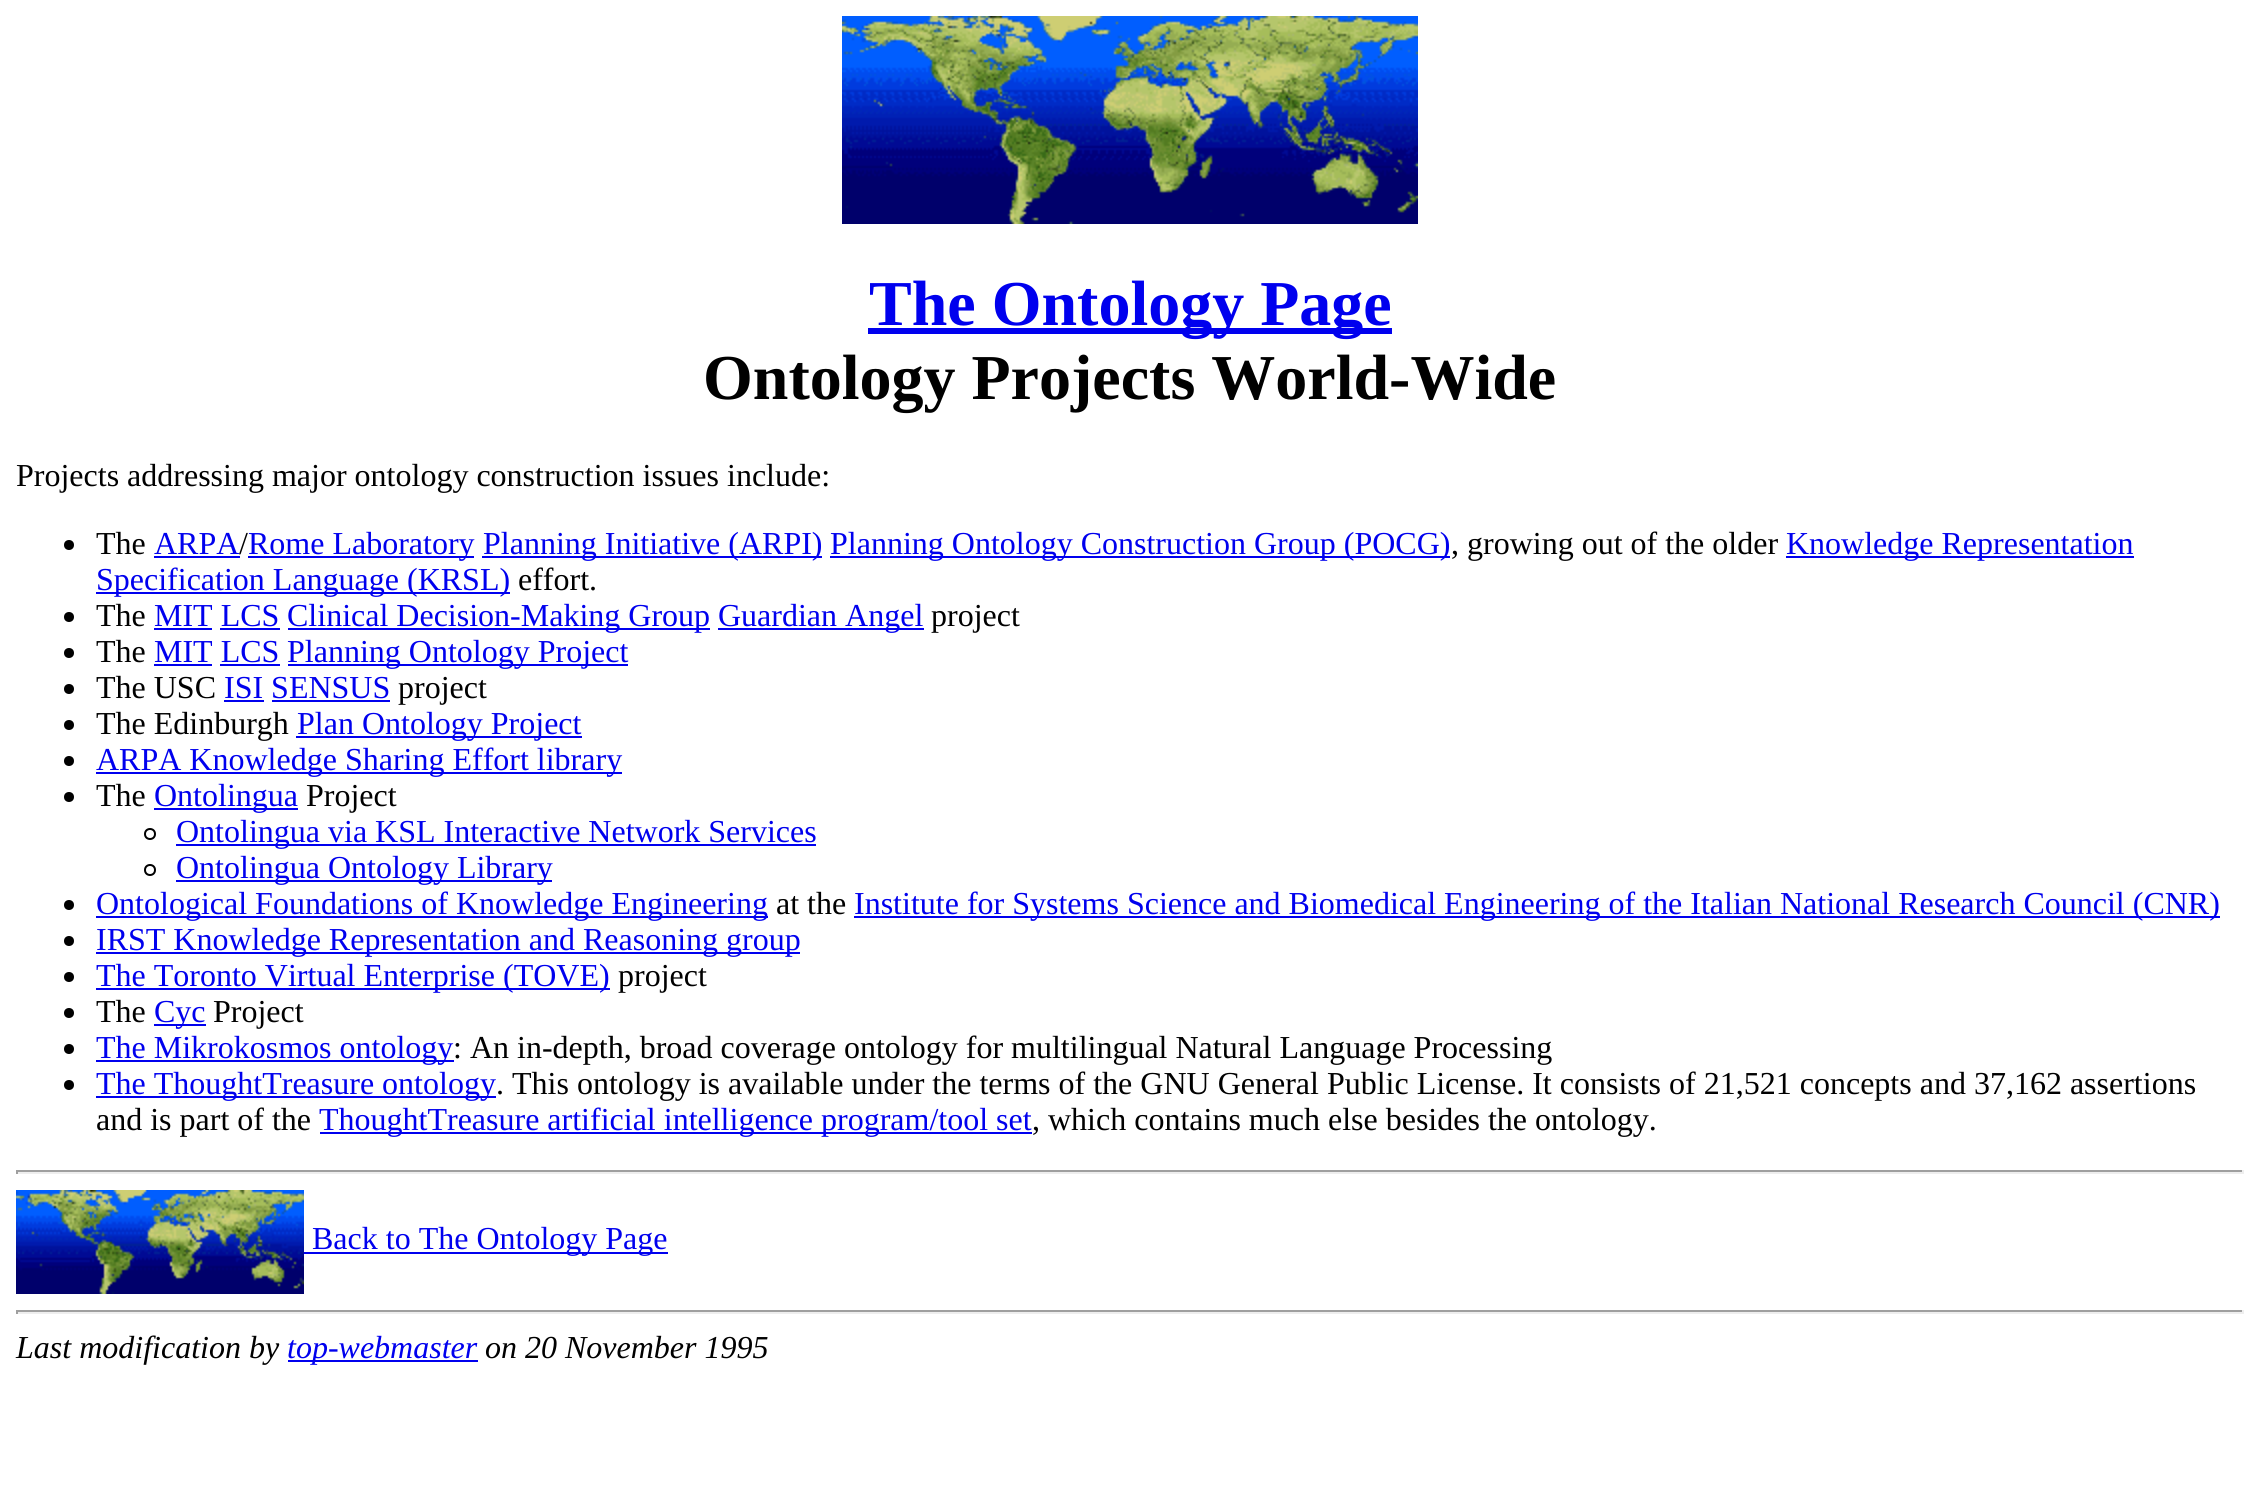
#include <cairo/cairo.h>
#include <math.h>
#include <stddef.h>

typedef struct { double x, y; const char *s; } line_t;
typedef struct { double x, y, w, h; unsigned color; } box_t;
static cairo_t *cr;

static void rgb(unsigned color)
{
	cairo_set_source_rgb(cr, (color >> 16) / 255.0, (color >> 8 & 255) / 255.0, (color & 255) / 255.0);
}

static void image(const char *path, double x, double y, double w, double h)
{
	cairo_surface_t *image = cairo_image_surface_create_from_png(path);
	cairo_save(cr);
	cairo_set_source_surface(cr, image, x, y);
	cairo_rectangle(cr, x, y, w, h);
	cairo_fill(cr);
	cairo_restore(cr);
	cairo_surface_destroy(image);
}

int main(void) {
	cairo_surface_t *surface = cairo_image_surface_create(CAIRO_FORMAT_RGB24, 2260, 1505);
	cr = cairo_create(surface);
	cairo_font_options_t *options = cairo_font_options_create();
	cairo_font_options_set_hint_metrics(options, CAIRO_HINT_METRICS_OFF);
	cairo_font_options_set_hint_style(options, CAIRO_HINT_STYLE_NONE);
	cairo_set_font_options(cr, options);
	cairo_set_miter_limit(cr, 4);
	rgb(0xffffff);
	cairo_paint(cr);
	image("img/1.png", 842, 16, 576, 208);
	rgb(0x0000ee);
	cairo_rectangle(cr, 868, 328, 524, 6);
	cairo_fill(cr);
	rgb(0x000000);
	cairo_arc(cr, 69, 545, 5, 0, 2 * M_PI);
	cairo_fill(cr);
	{
		static const box_t items[] = {
			{154, 556, 86, 2, 0x0000ee},
			{248, 556, 226, 2, 0x0000ee},
			{482, 556, 340, 2, 0x0000ee},
			{830, 556, 620, 2, 0x0000ee},
			{1786, 556, 348, 2, 0x0000ee},
			{96, 592, 414, 2, 0x0000ee},
		};
		for (size_t i = 0; i < sizeof items / sizeof *items; i++) {
			rgb(items[i].color);
			cairo_rectangle(cr, items[i].x, items[i].y, items[i].w, items[i].h);
			cairo_fill(cr);
		}
	}
	rgb(0x000000);
	cairo_arc(cr, 69, 617, 5, 0, 2 * M_PI);
	cairo_fill(cr);
	{
		static const box_t items[] = {
			{154, 628, 58, 2, 0x0000ee},
			{288, 628, 422, 2, 0x0000ee},
			{718, 628, 206, 2, 0x0000ee},
			{220, 628, 60, 2, 0x0000ee},
		};
		for (size_t i = 0; i < sizeof items / sizeof *items; i++) {
			rgb(items[i].color);
			cairo_rectangle(cr, items[i].x, items[i].y, items[i].w, items[i].h);
			cairo_fill(cr);
		}
	}
	rgb(0x000000);
	cairo_arc(cr, 69, 653, 5, 0, 2 * M_PI);
	cairo_fill(cr);
	{
		static const box_t items[] = {
			{154, 664, 58, 2, 0x0000ee},
			{288, 664, 340, 2, 0x0000ee},
			{220, 664, 60, 2, 0x0000ee},
		};
		for (size_t i = 0; i < sizeof items / sizeof *items; i++) {
			rgb(items[i].color);
			cairo_rectangle(cr, items[i].x, items[i].y, items[i].w, items[i].h);
			cairo_fill(cr);
		}
	}
	rgb(0x000000);
	cairo_arc(cr, 69, 689, 5, 0, 2 * M_PI);
	cairo_fill(cr);
	rgb(0x0000ee);
	cairo_rectangle(cr, 224, 700, 40, 2);
	cairo_fill(cr);
	cairo_rectangle(cr, 272, 700, 118, 2);
	cairo_fill(cr);
	rgb(0x000000);
	cairo_arc(cr, 69, 725, 5, 0, 2 * M_PI);
	cairo_fill(cr);
	rgb(0x0000ee);
	cairo_rectangle(cr, 296, 736, 286, 2);
	cairo_fill(cr);
	rgb(0x000000);
	cairo_arc(cr, 69, 761, 5, 0, 2 * M_PI);
	cairo_fill(cr);
	rgb(0x0000ee);
	cairo_rectangle(cr, 96, 772, 526, 2);
	cairo_fill(cr);
	rgb(0x000000);
	cairo_arc(cr, 69, 797, 5, 0, 2 * M_PI);
	cairo_fill(cr);
	rgb(0x0000ee);
	cairo_rectangle(cr, 154, 808, 144, 2);
	cairo_fill(cr);
	cairo_arc(cr, 150, 834, 5, 0, 2 * M_PI);
	rgb(0x000000);
	cairo_stroke(cr);
	rgb(0x0000ee);
	cairo_rectangle(cr, 176, 844, 640, 2);
	cairo_fill(cr);
	cairo_arc(cr, 150, 870, 5, 0, 2 * M_PI);
	rgb(0x000000);
	cairo_stroke(cr);
	rgb(0x0000ee);
	cairo_rectangle(cr, 176, 880, 376, 2);
	cairo_fill(cr);
	rgb(0x000000);
	cairo_arc(cr, 69, 905, 5, 0, 2 * M_PI);
	cairo_fill(cr);
	rgb(0x0000ee);
	cairo_rectangle(cr, 96, 916, 672, 2);
	cairo_fill(cr);
	cairo_rectangle(cr, 854, 916, 1366, 2);
	cairo_fill(cr);
	rgb(0x000000);
	cairo_arc(cr, 69, 941, 5, 0, 2 * M_PI);
	cairo_fill(cr);
	rgb(0x0000ee);
	cairo_rectangle(cr, 96, 952, 704, 2);
	cairo_fill(cr);
	rgb(0x000000);
	cairo_arc(cr, 69, 977, 5, 0, 2 * M_PI);
	cairo_fill(cr);
	rgb(0x0000ee);
	cairo_rectangle(cr, 96, 988, 514, 2);
	cairo_fill(cr);
	rgb(0x000000);
	cairo_arc(cr, 69, 1013, 5, 0, 2 * M_PI);
	cairo_fill(cr);
	rgb(0x0000ee);
	cairo_rectangle(cr, 154, 1024, 52, 2);
	cairo_fill(cr);
	rgb(0x000000);
	cairo_arc(cr, 69, 1049, 5, 0, 2 * M_PI);
	cairo_fill(cr);
	rgb(0x0000ee);
	cairo_rectangle(cr, 96, 1060, 358, 2);
	cairo_fill(cr);
	rgb(0x000000);
	cairo_arc(cr, 69, 1085, 5, 0, 2 * M_PI);
	cairo_fill(cr);
	{
		static const box_t items[] = {
			{96, 1096, 400, 2, 0x0000ee},
			{320, 1132, 712, 2, 0x0000ee},
			{16, 1170, 2228, 2, 0x9f9f9f},
			{2242, 1170, 2, 4, 0xeeeeee},
			{16, 1172, 2228, 2, 0xeeeeee},
			{16, 1170, 2, 4, 0x9f9f9f},
		};
		for (size_t i = 0; i < sizeof items / sizeof *items; i++) {
			rgb(items[i].color);
			cairo_rectangle(cr, items[i].x, items[i].y, items[i].w, items[i].h);
			cairo_fill(cr);
		}
	}
	image("img/2.png", 16, 1190, 288, 104);
	{
		static const box_t items[] = {
			{304, 1252, 364, 2, 0x0000ee},
			{16, 1310, 2228, 2, 0x9f9f9f},
			{2242, 1310, 2, 4, 0xeeeeee},
			{16, 1312, 2228, 2, 0xeeeeee},
			{16, 1310, 2, 4, 0x9f9f9f},
			{288, 1360, 190, 2, 0x0000ee},
		};
		for (size_t i = 0; i < sizeof items / sizeof *items; i++) {
			rgb(items[i].color);
			cairo_rectangle(cr, items[i].x, items[i].y, items[i].w, items[i].h);
			cairo_fill(cr);
		}
	}
	cairo_select_font_face(cr, "Liberation Serif", CAIRO_FONT_SLANT_NORMAL, CAIRO_FONT_WEIGHT_BOLD);
	cairo_set_font_size(cr, 64);
	cairo_move_to(cr, 869, 325);
	cairo_show_text(cr, "The Ontology Page");
	rgb(0x000000);
	cairo_move_to(cr, 703, 399);
	cairo_show_text(cr, "Ontology Projects World-Wide");
	cairo_select_font_face(cr, "Liberation Serif", CAIRO_FONT_SLANT_NORMAL, CAIRO_FONT_WEIGHT_NORMAL);
	cairo_set_font_size(cr, 32);
	cairo_move_to(cr, 16, 486);
	cairo_show_text(cr, "Projects addressing major ontology construction issues include:");
	cairo_move_to(cr, 96, 554);
	cairo_show_text(cr, "The");
	rgb(0x0000ee);
	cairo_move_to(cr, 154, 554);
	cairo_show_text(cr, "ARPA");
	rgb(0x000000);
	cairo_move_to(cr, 239, 554);
	cairo_show_text(cr, "/");
	rgb(0x0000ee);
	{
		static const line_t items[] = {
			{248, 554, "Rome Laboratory"},
			{483, 554, "Planning Initiative (ARPI)"},
			{830, 554, "Planning Ontology Construction Group (POCG)"},
		};
		for (size_t i = 0; i < sizeof items / sizeof *items; i++) {
			cairo_move_to(cr, items[i].x, items[i].y);
			cairo_show_text(cr, items[i].s);
		}
	}
	rgb(0x000000);
	cairo_move_to(cr, 1451, 554);
	cairo_show_text(cr, ", growing out of the older");
	rgb(0x0000ee);
	cairo_move_to(cr, 1786, 554);
	cairo_show_text(cr, "Knowledge Representation");
	cairo_move_to(cr, 96, 590);
	cairo_show_text(cr, "Specification Language (KRSL)");
	rgb(0x000000);
	cairo_move_to(cr, 518, 590);
	cairo_show_text(cr, "effort.");
	cairo_move_to(cr, 96, 626);
	cairo_show_text(cr, "The");
	rgb(0x0000ee);
	{
		static const line_t items[] = {
			{154, 626, "MIT LCS"},
			{287, 626, "Clinical Decision-Making Group"},
			{718, 626, "Guardian Angel"},
		};
		for (size_t i = 0; i < sizeof items / sizeof *items; i++) {
			cairo_move_to(cr, items[i].x, items[i].y);
			cairo_show_text(cr, items[i].s);
		}
	}
	rgb(0x000000);
	cairo_move_to(cr, 931, 626);
	cairo_show_text(cr, "project");
	cairo_move_to(cr, 96, 662);
	cairo_show_text(cr, "The");
	rgb(0x0000ee);
	cairo_move_to(cr, 154, 662);
	cairo_show_text(cr, "MIT LCS");
	cairo_move_to(cr, 287, 662);
	cairo_show_text(cr, "Planning Ontology Project");
	rgb(0x000000);
	cairo_move_to(cr, 96, 698);
	cairo_show_text(cr, "The USC");
	rgb(0x0000ee);
	cairo_move_to(cr, 224, 698);
	cairo_show_text(cr, "ISI SENSUS");
	rgb(0x000000);
	cairo_move_to(cr, 398, 698);
	cairo_show_text(cr, "project");
	cairo_move_to(cr, 96, 734);
	cairo_show_text(cr, "The Edinburgh");
	rgb(0x0000ee);
	cairo_move_to(cr, 297, 734);
	cairo_show_text(cr, "Plan Ontology Project");
	cairo_move_to(cr, 96, 770);
	cairo_show_text(cr, "ARPA Knowledge Sharing Effort library");
	rgb(0x000000);
	cairo_move_to(cr, 96, 806);
	cairo_show_text(cr, "The");
	rgb(0x0000ee);
	cairo_move_to(cr, 154, 806);
	cairo_show_text(cr, "Ontolingua");
	rgb(0x000000);
	cairo_move_to(cr, 306, 806);
	cairo_show_text(cr, "Project");
	rgb(0x0000ee);
	{
		static const line_t items[] = {
			{176, 842, "Ontolingua via KSL Interactive Network Services"},
			{176, 878, "Ontolingua Ontology Library"},
			{96, 914, "Ontological Foundations of Knowledge Engineering"},
		};
		for (size_t i = 0; i < sizeof items / sizeof *items; i++) {
			cairo_move_to(cr, items[i].x, items[i].y);
			cairo_show_text(cr, items[i].s);
		}
	}
	rgb(0x000000);
	cairo_move_to(cr, 776, 914);
	cairo_show_text(cr, "at the");
	rgb(0x0000ee);
	{
		static const line_t items[] = {
			{854, 914, "Institute for Systems Science and Biomedical Engineering of the Italian National Research Council (CNR)"},
			{96, 950, "IRST Knowledge Representation and Reasoning group"},
			{96, 986, "The Toronto Virtual Enterprise (TOVE)"},
		};
		for (size_t i = 0; i < sizeof items / sizeof *items; i++) {
			cairo_move_to(cr, items[i].x, items[i].y);
			cairo_show_text(cr, items[i].s);
		}
	}
	rgb(0x000000);
	cairo_move_to(cr, 618, 986);
	cairo_show_text(cr, "project");
	cairo_move_to(cr, 96, 1022);
	cairo_show_text(cr, "The");
	rgb(0x0000ee);
	cairo_move_to(cr, 154, 1022);
	cairo_show_text(cr, "Cyc");
	rgb(0x000000);
	cairo_move_to(cr, 213, 1022);
	cairo_show_text(cr, "Project");
	rgb(0x0000ee);
	cairo_move_to(cr, 96, 1058);
	cairo_show_text(cr, "The Mikrokosmos ontology");
	rgb(0x000000);
	cairo_move_to(cr, 453, 1058);
	cairo_show_text(cr, ": An in-depth, broad coverage ontology for multilingual Natural Language Processing");
	rgb(0x0000ee);
	cairo_move_to(cr, 96, 1094);
	cairo_show_text(cr, "The ThoughtTreasure ontology");
	rgb(0x000000);
	cairo_move_to(cr, 496, 1094);
	cairo_show_text(cr, ". This ontology is available under the terms of the GNU General Public License. It consists of 21,521 concepts and 37,162 assertions");
	cairo_move_to(cr, 96, 1130);
	cairo_show_text(cr, "and is part of the");
	rgb(0x0000ee);
	cairo_move_to(cr, 319, 1130);
	cairo_show_text(cr, "ThoughtTreasure artificial intelligence program/tool set");
	rgb(0x000000);
	cairo_move_to(cr, 1032, 1130);
	cairo_show_text(cr, ", which contains much else besides the ontology.");
	rgb(0x0000ee);
	cairo_move_to(cr, 312, 1249);
	cairo_show_text(cr, "Back to The Ontology Page");
	cairo_select_font_face(cr, "Liberation Serif", CAIRO_FONT_SLANT_ITALIC, CAIRO_FONT_WEIGHT_NORMAL);
	rgb(0x000000);
	cairo_move_to(cr, 16, 1358);
	cairo_show_text(cr, "Last modification by");
	rgb(0x0000ee);
	cairo_move_to(cr, 287, 1358);
	cairo_show_text(cr, "top-webmaster");
	rgb(0x000000);
	cairo_move_to(cr, 485, 1358);
	cairo_show_text(cr, "on 20 November 1995");
	cairo_surface_write_to_png(surface, "page.png");
	cairo_font_options_destroy(options);
	cairo_destroy(cr);
	cairo_surface_destroy(surface);
	return 0;
}
